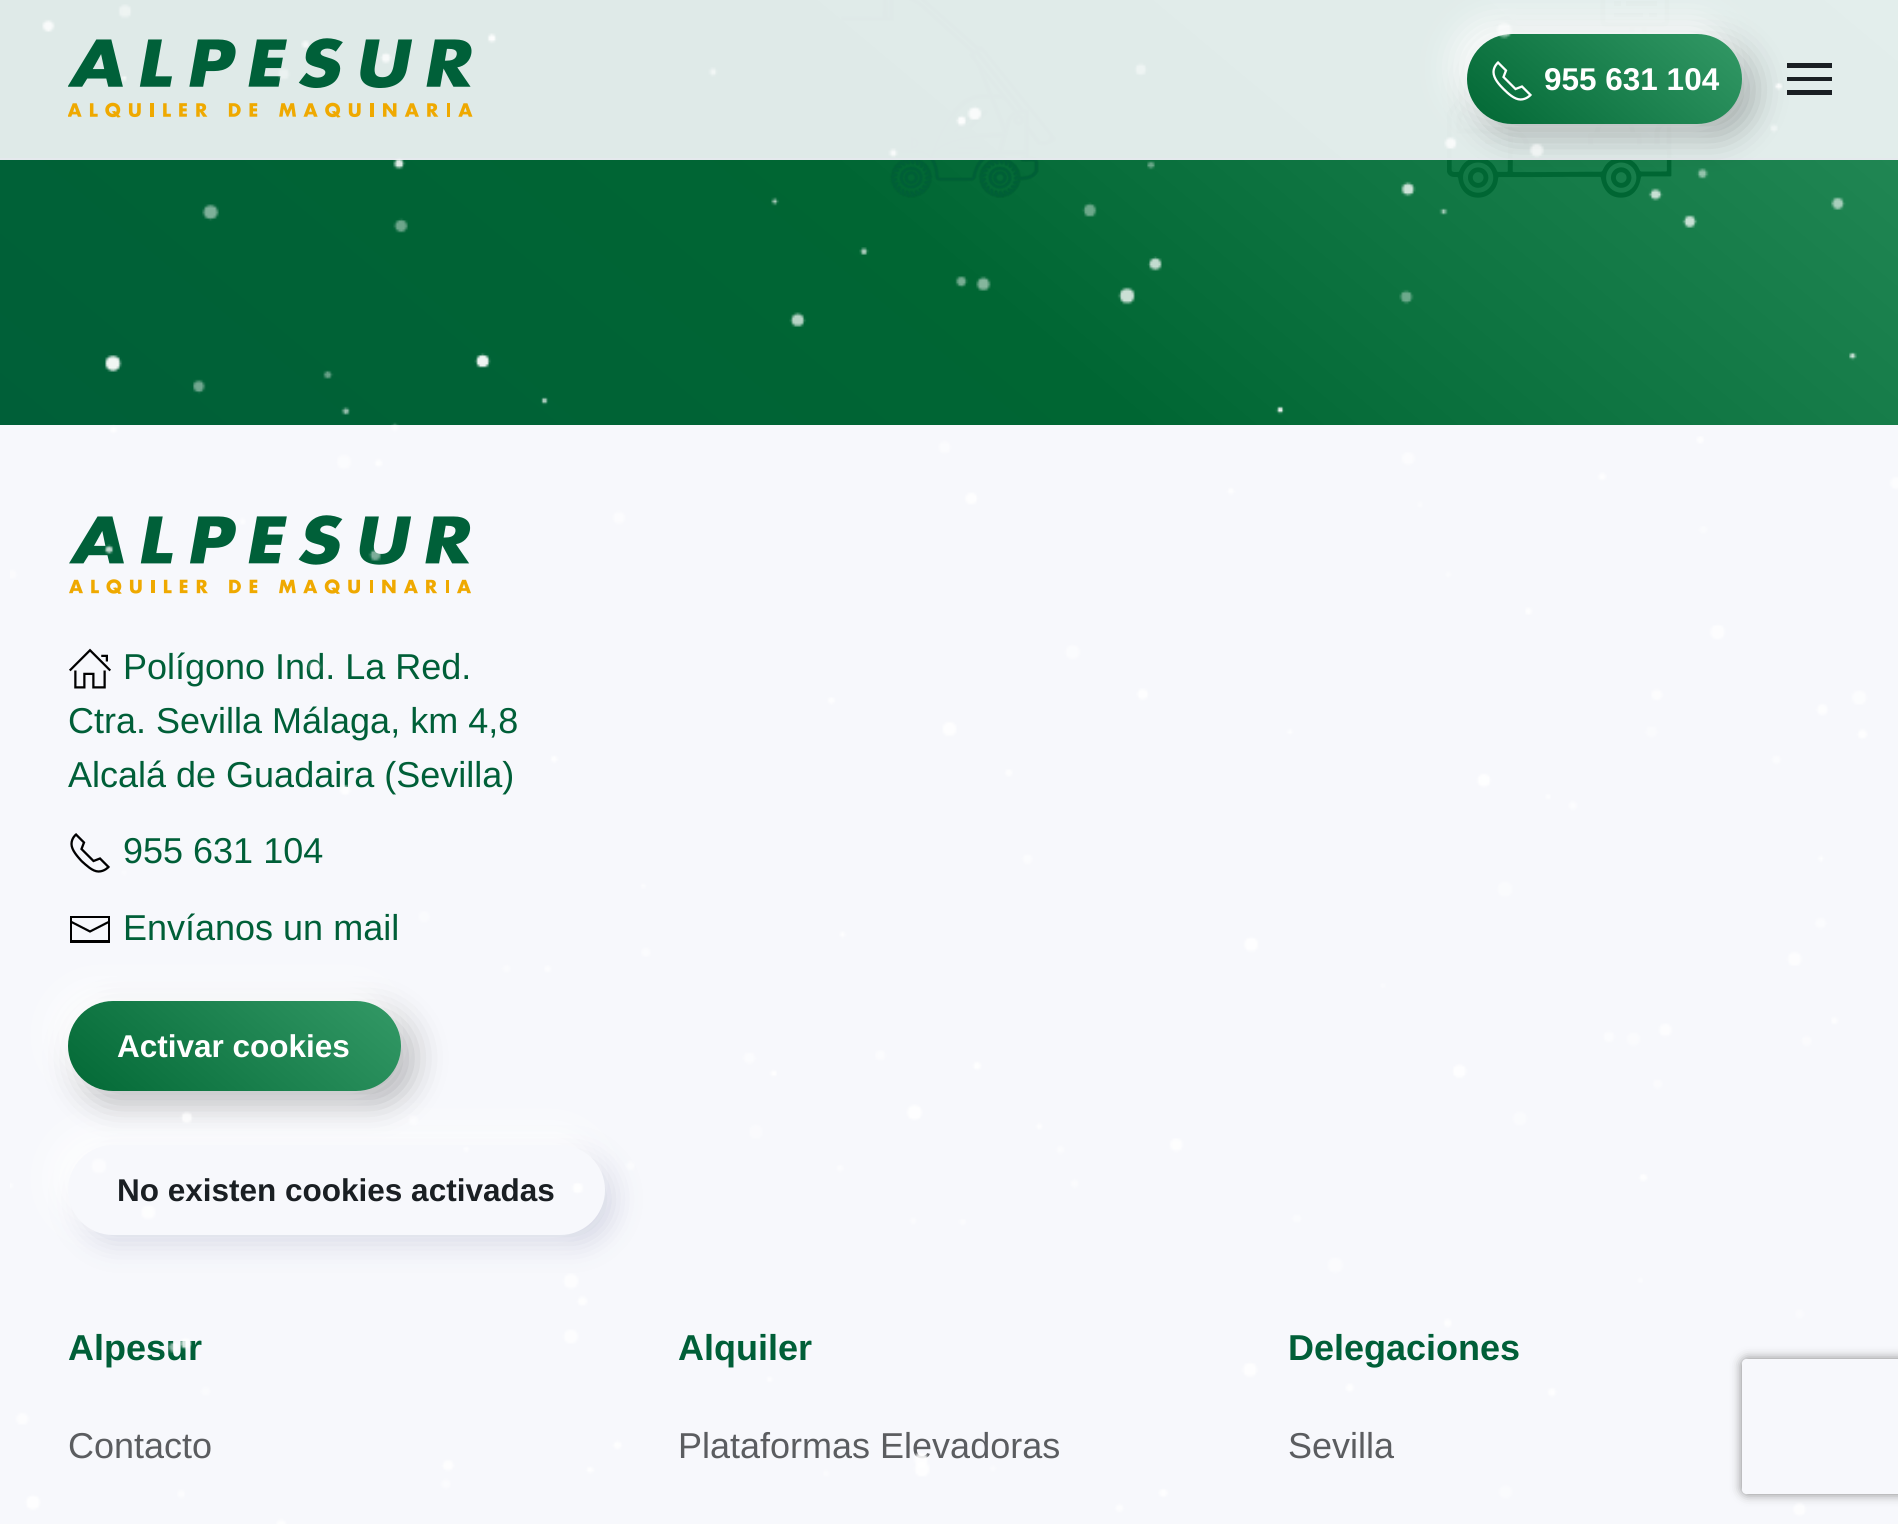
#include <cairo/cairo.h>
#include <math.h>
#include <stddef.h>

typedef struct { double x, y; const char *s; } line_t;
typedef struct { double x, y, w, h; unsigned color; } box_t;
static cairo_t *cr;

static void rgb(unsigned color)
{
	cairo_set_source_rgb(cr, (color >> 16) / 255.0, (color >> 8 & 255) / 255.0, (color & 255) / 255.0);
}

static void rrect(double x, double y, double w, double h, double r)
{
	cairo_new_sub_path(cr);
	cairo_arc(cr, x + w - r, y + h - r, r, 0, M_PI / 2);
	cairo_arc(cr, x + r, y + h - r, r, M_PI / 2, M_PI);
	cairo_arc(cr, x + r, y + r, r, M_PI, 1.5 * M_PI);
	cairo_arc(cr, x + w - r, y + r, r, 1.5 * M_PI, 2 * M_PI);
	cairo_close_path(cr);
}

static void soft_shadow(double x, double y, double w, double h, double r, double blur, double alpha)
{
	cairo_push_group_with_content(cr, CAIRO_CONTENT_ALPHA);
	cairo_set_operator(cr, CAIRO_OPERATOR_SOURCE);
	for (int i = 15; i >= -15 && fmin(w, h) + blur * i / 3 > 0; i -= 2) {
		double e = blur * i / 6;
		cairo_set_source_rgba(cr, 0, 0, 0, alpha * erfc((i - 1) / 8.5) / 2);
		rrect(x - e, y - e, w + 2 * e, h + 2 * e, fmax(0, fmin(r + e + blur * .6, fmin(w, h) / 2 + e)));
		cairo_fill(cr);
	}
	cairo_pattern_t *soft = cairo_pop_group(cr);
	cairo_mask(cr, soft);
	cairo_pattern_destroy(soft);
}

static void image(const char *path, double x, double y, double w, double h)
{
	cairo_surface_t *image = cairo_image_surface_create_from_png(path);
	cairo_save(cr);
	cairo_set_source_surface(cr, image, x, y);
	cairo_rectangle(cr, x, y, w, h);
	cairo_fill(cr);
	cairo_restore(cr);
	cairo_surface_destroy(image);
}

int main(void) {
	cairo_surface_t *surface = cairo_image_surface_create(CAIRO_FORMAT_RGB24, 1898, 1524);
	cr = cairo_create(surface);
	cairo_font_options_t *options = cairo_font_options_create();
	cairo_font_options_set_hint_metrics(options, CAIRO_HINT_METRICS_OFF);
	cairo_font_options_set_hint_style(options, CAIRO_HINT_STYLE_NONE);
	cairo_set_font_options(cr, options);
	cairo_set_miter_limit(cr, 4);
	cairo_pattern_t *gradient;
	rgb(0xf7f8fc);
	cairo_paint(cr);
	gradient = cairo_pattern_create_linear(361, 728, 1538, -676);
	cairo_pattern_add_color_stop_rgba(gradient, 0, 0, 0.373, 0.22, 1);
	cairo_pattern_add_color_stop_rgba(gradient, 0.4, 0, 0.4, 0.2, 1);
	cairo_pattern_add_color_stop_rgba(gradient, 1, 0.2, 0.6, 0.4, 1);
	cairo_set_source(cr, gradient);
	cairo_pattern_destroy(gradient);
	cairo_rectangle(cr, 0, 0, 1898, 425);
	cairo_fill(cr);
	image("img/3.png", 233, 89, 111, 67);
	image("img/4.png", 841, 0, 215, 198);
	image("img/5.png", 1447, 0, 225, 198);
	cairo_set_source_rgba(cr, 0.969, 0.973, 0.988, 0.9);
	cairo_rectangle(cr, 0, 0, 1898, 158);
	cairo_fill(cr);
	rgb(0xe5e9ed);
	cairo_rectangle(cr, 0, 158, 1898, 2);
	cairo_fill(cr);
	image("img/2.png", 68, 38, 405, 80);
	rgb(0x000000);
	soft_shadow(1478, 45, 275, 90, 45, 17, 0.3);
	rgb(0xffffff);
	soft_shadow(1456, 23, 274, 90, 45, 17, 0.9);
	gradient = cairo_pattern_create_linear(1331, 240, 1603, -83);
	cairo_pattern_add_color_stop_rgba(gradient, 0, 0, 0.373, 0.22, 1);
	cairo_pattern_add_color_stop_rgba(gradient, 0.4, 0, 0.4, 0.2, 1);
	cairo_pattern_add_color_stop_rgba(gradient, 1, 0.2, 0.6, 0.4, 1);
	cairo_set_source(cr, gradient);
	cairo_pattern_destroy(gradient);
	rrect(1467, 34, 275, 90, 45);
	cairo_fill(cr);
	cairo_new_path(cr);
	cairo_move_to(cr, 1503.5, 89);
	cairo_curve_to(cr, 1508, 93.5, 1514.5, 99.5, 1520.5, 99.5);
	cairo_curve_to(cr, 1526.5, 99.5, 1530.5, 95, 1530.5, 95);
	cairo_line_to(cr, 1522, 86.5);
	cairo_line_to(cr, 1515.5, 89);
	cairo_line_to(cr, 1503.5, 77);
	cairo_line_to(cr, 1506, 70.5);
	cairo_line_to(cr, 1498, 62.5);
	cairo_curve_to(cr, 1498, 62.5, 1493.5, 66.5, 1493.5, 72);
	cairo_curve_to(cr, 1493.5, 78.5, 1499.5, 85, 1503.5, 89);
	rgb(0xffffff);
	cairo_set_line_width(cr, 2.3);
	cairo_stroke(cr);
	{
		static const box_t items[] = {
			{1787, 63, 45, 5, 0x1a1f23},
			{1787, 77, 45, 4, 0x1a1f23},
			{1787, 90, 45, 5, 0x1a1f23},
		};
		for (size_t i = 0; i < sizeof items / sizeof *items; i++) {
			rgb(items[i].color);
			cairo_rectangle(cr, items[i].x, items[i].y, items[i].w, items[i].h);
			cairo_fill(cr);
		}
	}
	image("img/6.png", 69, 515, 402, 79);
	image("img/7.png", 69, 648, 42, 41);
	cairo_new_path(cr);
	cairo_move_to(cr, 81.5, 861);
	cairo_curve_to(cr, 86, 865, 92.5, 871.5, 98.5, 871.5);
	cairo_curve_to(cr, 104.5, 871.5, 108.5, 867, 108.5, 867);
	cairo_line_to(cr, 100, 858.5);
	cairo_line_to(cr, 93.5, 861);
	cairo_line_to(cr, 81.5, 849);
	cairo_line_to(cr, 84, 842.5);
	cairo_line_to(cr, 76, 834.5);
	cairo_curve_to(cr, 76, 834.5, 71.5, 838, 71.5, 844);
	cairo_curve_to(cr, 71.5, 850, 77.5, 856.5, 81.5, 861);
	rgb(0x000000);
	cairo_stroke(cr);
	cairo_new_path(cr);
	cairo_move_to(cr, 70.5, 921.5);
	cairo_line_to(cr, 90, 931.5);
	cairo_line_to(cr, 109.5, 921.5);
	cairo_set_line_width(cr, 2.2);
	cairo_stroke(cr);
	cairo_new_path(cr);
	cairo_move_to(cr, 70, 916);
	cairo_line_to(cr, 70, 943);
	cairo_line_to(cr, 110, 943);
	cairo_line_to(cr, 110, 916);
	cairo_close_path(cr);
	cairo_move_to(cr, 108, 940);
	cairo_line_to(cr, 72, 940);
	cairo_line_to(cr, 72, 918);
	cairo_line_to(cr, 108, 918);
	cairo_close_path(cr);
	cairo_fill(cr);
	rgb(0x000000);
	soft_shadow(79, 1013, 333, 90, 45, 17, 0.3);
	rgb(0xffffff);
	soft_shadow(56, 990, 333, 90, 45, 17, 0.9);
	gradient = cairo_pattern_create_linear(-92, 1237, 227, 856);
	cairo_pattern_add_color_stop_rgba(gradient, 0, 0, 0.373, 0.22, 1);
	cairo_pattern_add_color_stop_rgba(gradient, 0.4, 0, 0.4, 0.2, 1);
	cairo_pattern_add_color_stop_rgba(gradient, 1, 0.2, 0.6, 0.4, 1);
	cairo_set_source(cr, gradient);
	cairo_pattern_destroy(gradient);
	rrect(68, 1001, 333, 90, 45);
	cairo_fill(cr);
	rgb(0x39417c);
	soft_shadow(77, 1154, 537, 90, 45, 13.5, 0.2);
	rgb(0xffffff);
	soft_shadow(56, 1134, 538, 90, 45, 17, 0.9);
	rgb(0xf7f8fc);
	rrect(68, 1145, 537, 90, 45);
	cairo_fill(cr);
	cairo_save(cr);
	cairo_set_fill_rule(cr, CAIRO_FILL_RULE_EVEN_ODD);
	cairo_new_path(cr);
	cairo_move_to(cr, 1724, 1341);
	cairo_line_to(cr, 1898, 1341);
	cairo_line_to(cr, 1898, 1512);
	cairo_line_to(cr, 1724, 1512);
	cairo_close_path(cr);
	cairo_move_to(cr, 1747, 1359);
	cairo_line_to(cr, 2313, 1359);
	cairo_curve_to(cr, 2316, 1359, 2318, 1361, 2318, 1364);
	cairo_line_to(cr, 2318, 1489);
	cairo_curve_to(cr, 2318, 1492, 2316, 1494, 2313, 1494);
	cairo_line_to(cr, 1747, 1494);
	cairo_curve_to(cr, 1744, 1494, 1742, 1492, 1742, 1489);
	cairo_line_to(cr, 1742, 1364);
	cairo_curve_to(cr, 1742, 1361, 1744, 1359, 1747, 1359);
	cairo_close_path(cr);
	cairo_clip(cr);
	rgb(0x808080);
	soft_shadow(1742, 1359, 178, 135, 5, 5.5, 1);
	cairo_restore(cr);
	cairo_select_font_face(cr, "Liberation Sans", CAIRO_FONT_SLANT_NORMAL, CAIRO_FONT_WEIGHT_BOLD);
	cairo_set_font_size(cr, 31.5);
	rgb(0xffffff);
	cairo_move_to(cr, 1544, 90);
	cairo_show_text(cr, "955 631 104");
	cairo_select_font_face(cr, "Liberation Sans", CAIRO_FONT_SLANT_NORMAL, CAIRO_FONT_WEIGHT_NORMAL);
	cairo_set_font_size(cr, 36);
	rgb(0x005f38);
	{
		static const line_t items[] = {
			{123, 679, "Polígono Ind. La Red."},
			{68, 733, "Ctra. Sevilla Málaga, km 4,8"},
			{68, 787, "Alcalá de Guadaira (Sevilla)"},
			{123, 863, "955 631 104"},
			{123, 940, "Envíanos un mail"},
		};
		for (size_t i = 0; i < sizeof items / sizeof *items; i++) {
			cairo_move_to(cr, items[i].x, items[i].y);
			cairo_show_text(cr, items[i].s);
		}
	}
	cairo_select_font_face(cr, "Liberation Sans", CAIRO_FONT_SLANT_NORMAL, CAIRO_FONT_WEIGHT_BOLD);
	cairo_set_font_size(cr, 31.5);
	rgb(0xffffff);
	cairo_move_to(cr, 117, 1057);
	cairo_show_text(cr, "Activar cookies");
	rgb(0x1a1f23);
	cairo_move_to(cr, 117, 1201);
	cairo_show_text(cr, "No existen cookies activadas");
	cairo_set_font_size(cr, 36);
	rgb(0x005f38);
	cairo_move_to(cr, 68, 1360);
	cairo_show_text(cr, "Alpesur");
	cairo_select_font_face(cr, "Liberation Sans", CAIRO_FONT_SLANT_NORMAL, CAIRO_FONT_WEIGHT_NORMAL);
	rgb(0x5b5d60);
	cairo_move_to(cr, 68, 1458);
	cairo_show_text(cr, "Contacto");
	cairo_select_font_face(cr, "Liberation Sans", CAIRO_FONT_SLANT_NORMAL, CAIRO_FONT_WEIGHT_BOLD);
	rgb(0x005f38);
	cairo_move_to(cr, 678, 1360);
	cairo_show_text(cr, "Alquiler");
	cairo_select_font_face(cr, "Liberation Sans", CAIRO_FONT_SLANT_NORMAL, CAIRO_FONT_WEIGHT_NORMAL);
	rgb(0x5b5d60);
	cairo_move_to(cr, 678, 1458);
	cairo_show_text(cr, "Plataformas Elevadoras");
	cairo_select_font_face(cr, "Liberation Sans", CAIRO_FONT_SLANT_NORMAL, CAIRO_FONT_WEIGHT_BOLD);
	rgb(0x005f38);
	cairo_move_to(cr, 1288, 1360);
	cairo_show_text(cr, "Delegaciones");
	cairo_select_font_face(cr, "Liberation Sans", CAIRO_FONT_SLANT_NORMAL, CAIRO_FONT_WEIGHT_NORMAL);
	rgb(0x5b5d60);
	cairo_move_to(cr, 1288, 1458);
	cairo_show_text(cr, "Sevilla");
	image("img/1.png", 10, 4, 1888, 1520);
	cairo_surface_write_to_png(surface, "page.png");
	cairo_font_options_destroy(options);
	cairo_destroy(cr);
	cairo_surface_destroy(surface);
	return 0;
}
